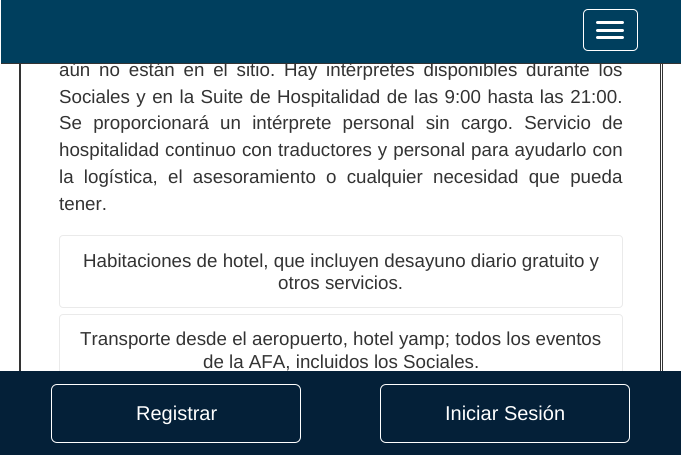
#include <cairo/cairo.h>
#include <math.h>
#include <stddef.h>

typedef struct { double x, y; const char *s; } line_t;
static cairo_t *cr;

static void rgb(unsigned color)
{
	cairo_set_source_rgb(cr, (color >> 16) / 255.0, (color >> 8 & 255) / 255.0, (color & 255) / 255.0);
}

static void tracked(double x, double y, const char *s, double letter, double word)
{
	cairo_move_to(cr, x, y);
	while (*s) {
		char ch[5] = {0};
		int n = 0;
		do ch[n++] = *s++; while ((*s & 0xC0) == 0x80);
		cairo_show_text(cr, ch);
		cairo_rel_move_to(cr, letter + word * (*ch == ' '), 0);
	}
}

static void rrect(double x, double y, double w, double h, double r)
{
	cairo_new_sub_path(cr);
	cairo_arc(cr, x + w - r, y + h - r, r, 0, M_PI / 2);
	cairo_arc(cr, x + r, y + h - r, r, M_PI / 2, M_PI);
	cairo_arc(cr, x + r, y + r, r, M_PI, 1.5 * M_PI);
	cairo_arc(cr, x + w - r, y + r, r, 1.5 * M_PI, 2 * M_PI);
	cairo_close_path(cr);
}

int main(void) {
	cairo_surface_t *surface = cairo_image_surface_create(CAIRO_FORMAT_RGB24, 681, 455);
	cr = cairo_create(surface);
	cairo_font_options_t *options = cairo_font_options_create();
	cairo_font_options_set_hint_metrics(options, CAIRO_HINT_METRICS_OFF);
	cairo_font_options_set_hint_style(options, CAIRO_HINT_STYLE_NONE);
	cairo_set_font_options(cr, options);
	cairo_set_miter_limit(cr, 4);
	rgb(0xffffff);
	cairo_paint(cr);
	cairo_rectangle(cr, 19.5, -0.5, 643, 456);
	rgb(0x333333);
	cairo_set_line_width(cr, 1);
	cairo_stroke(cr);
	cairo_rectangle(cr, 20.5, -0.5, 640, 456);
	cairo_stroke(cr);
	cairo_rectangle(cr, 1, 63, 680, 1);
	cairo_fill(cr);
	rrect(59.5, 235.5, 563, 72, 3.5);
	rgb(0xeaeaea);
	cairo_stroke(cr);
	rrect(59.5, 314.5, 563, 71, 3.5);
	cairo_stroke(cr);
	rgb(0x042038);
	cairo_rectangle(cr, 0, 371, 681, 84);
	cairo_fill(cr);
	rrect(51.5, 384.5, 249, 58, 5.5);
	rgb(0xffffff);
	cairo_stroke(cr);
	rrect(380.5, 384.5, 249, 58, 5.5);
	cairo_stroke(cr);
	cairo_select_font_face(cr, "Liberation Sans", CAIRO_FONT_SLANT_NORMAL, CAIRO_FONT_WEIGHT_NORMAL);
	cairo_set_font_size(cr, 18.75);
	rgb(0x333333);
	tracked(59, 76, "aún no están en el sitio. Hay intérpretes disponibles durante los", 0, 3.6);
	rgb(0x003f5e);
	cairo_rectangle(cr, 1, 0, 680, 63);
	cairo_fill(cr);
	rrect(583.5, 9.5, 54, 41, 4.5);
	rgb(0xffffff);
	cairo_stroke(cr);
	rrect(596, 36, 28, 3, 1.5);
	cairo_fill(cr);
	rrect(596, 29, 28, 3, 1.5);
	cairo_fill(cr);
	rrect(596, 21, 28, 3, 1.5);
	cairo_fill(cr);
	rgb(0x333333);
	tracked(59, 103, "Sociales y en la Suite de Hospitalidad de las 9:00 hasta las 21:00.", 0, 1.25);
	tracked(59, 129, "Se proporcionará un intérprete personal sin cargo. Servicio de", 0, 6);
	tracked(59, 156, "hospitalidad continuo con traductores y personal para ayudarlo con", 0, 0.75);
	tracked(59, 183, "la logística, el asesoramiento o cualquier necesidad que pueda", 0, 5);
	{
		static const line_t items[] = {
			{59, 210, "tener."},
			{83, 267, "Habitaciones de hotel, que incluyen desayuno diario gratuito y"},
			{278, 289, "otros servicios."},
			{80, 345, "Transporte desde el aeropuerto, hotel yamp; todos los eventos"},
			{203, 368, "de la AFA, incluidos los Sociales."},
		};
		for (size_t i = 0; i < sizeof items / sizeof *items; i++) {
			cairo_move_to(cr, items[i].x, items[i].y);
			cairo_show_text(cr, items[i].s);
		}
	}
	cairo_set_font_size(cr, 20);
	rgb(0xffffff);
	cairo_move_to(cr, 136, 420);
	cairo_show_text(cr, "Registrar");
	cairo_move_to(cr, 445, 420);
	cairo_show_text(cr, "Iniciar Sesión");
	cairo_surface_write_to_png(surface, "page.png");
	cairo_font_options_destroy(options);
	cairo_destroy(cr);
	cairo_surface_destroy(surface);
	return 0;
}
